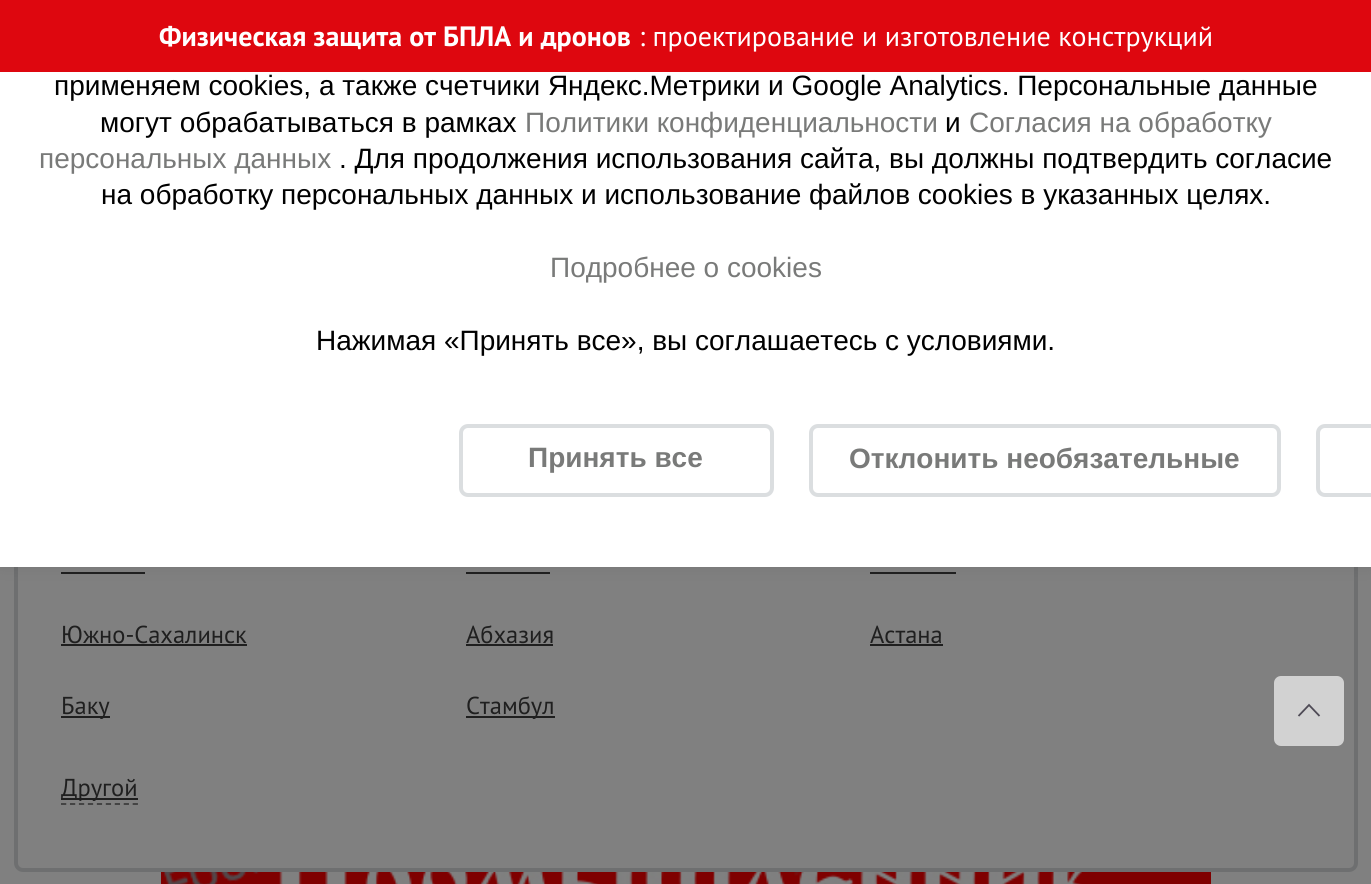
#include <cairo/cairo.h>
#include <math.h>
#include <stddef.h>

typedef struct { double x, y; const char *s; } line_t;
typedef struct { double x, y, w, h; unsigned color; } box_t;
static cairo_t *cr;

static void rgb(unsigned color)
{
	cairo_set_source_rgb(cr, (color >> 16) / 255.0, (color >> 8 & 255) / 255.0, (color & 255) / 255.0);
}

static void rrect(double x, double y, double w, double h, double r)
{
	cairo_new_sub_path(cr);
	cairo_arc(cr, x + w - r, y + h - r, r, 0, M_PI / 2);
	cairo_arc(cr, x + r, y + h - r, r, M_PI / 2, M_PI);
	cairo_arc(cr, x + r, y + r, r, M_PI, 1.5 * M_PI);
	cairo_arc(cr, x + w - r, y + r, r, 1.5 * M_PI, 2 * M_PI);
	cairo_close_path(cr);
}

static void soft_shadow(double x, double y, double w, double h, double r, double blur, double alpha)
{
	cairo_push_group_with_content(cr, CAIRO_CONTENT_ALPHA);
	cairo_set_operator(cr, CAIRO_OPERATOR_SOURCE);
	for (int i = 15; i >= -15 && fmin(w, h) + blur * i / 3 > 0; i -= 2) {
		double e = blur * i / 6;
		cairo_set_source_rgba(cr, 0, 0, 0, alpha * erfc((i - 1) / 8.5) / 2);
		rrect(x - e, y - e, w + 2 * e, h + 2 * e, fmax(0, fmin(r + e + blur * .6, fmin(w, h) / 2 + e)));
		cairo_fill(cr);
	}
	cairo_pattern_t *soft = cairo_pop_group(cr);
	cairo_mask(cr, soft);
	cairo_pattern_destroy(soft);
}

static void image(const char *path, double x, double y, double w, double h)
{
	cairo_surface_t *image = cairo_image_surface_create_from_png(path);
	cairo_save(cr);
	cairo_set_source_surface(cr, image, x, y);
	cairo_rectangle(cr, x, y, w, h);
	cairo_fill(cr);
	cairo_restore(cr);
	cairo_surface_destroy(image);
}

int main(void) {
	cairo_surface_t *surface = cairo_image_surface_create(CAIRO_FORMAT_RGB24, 1371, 884);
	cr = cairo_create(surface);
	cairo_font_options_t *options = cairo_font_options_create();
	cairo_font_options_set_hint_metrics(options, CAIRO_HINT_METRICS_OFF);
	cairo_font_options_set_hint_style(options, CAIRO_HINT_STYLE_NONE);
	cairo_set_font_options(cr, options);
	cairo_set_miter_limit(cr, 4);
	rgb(0x808080);
	cairo_paint(cr);
	rrect(16, 170, 1340, 700, 7);
	rgb(0x6e6f70);
	cairo_set_line_width(cr, 4);
	cairo_stroke(cr);
	{
		static const box_t items[] = {
			{61, 572, 84, 2, 0x1f1f1f},
			{466, 572, 84, 2, 0x1f1f1f},
			{870, 572, 86, 2, 0x1f1f1f},
		};
		for (size_t i = 0; i < sizeof items / sizeof *items; i++) {
			rgb(items[i].color);
			cairo_rectangle(cr, items[i].x, items[i].y, items[i].w, items[i].h);
			cairo_fill(cr);
		}
	}
	rgb(0x000000);
	soft_shadow(0, -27, 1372, 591, 0, 9, 0.1);
	rgb(0xde070f);
	cairo_rectangle(cr, 0, 0, 1371, 72);
	cairo_fill(cr);
	rgb(0xffffff);
	cairo_rectangle(cr, 0, 72, 1371, 495);
	cairo_fill(cr);
	rrect(461, 426, 311, 69, 7);
	rgb(0xdbdee0);
	cairo_stroke(cr);
	rrect(811, 426, 468, 69, 7);
	cairo_stroke(cr);
	rrect(1318, 426, 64, 69, 7);
	cairo_stroke(cr);
	{
		static const box_t items[] = {
			{61, 644, 186, 2, 0x1f1f1f},
			{466, 644, 87, 2, 0x1f1f1f},
			{870, 644, 73, 2, 0x1f1f1f},
			{61, 716, 49, 2, 0x1f1f1f},
			{466, 716, 89, 2, 0x1f1f1f},
			{61, 798, 77, 2, 0x1f1f1f},
		};
		for (size_t i = 0; i < sizeof items / sizeof *items; i++) {
			rgb(items[i].color);
			cairo_rectangle(cr, items[i].x, items[i].y, items[i].w, items[i].h);
			cairo_fill(cr);
		}
	}
	cairo_new_path(cr);
	cairo_move_to(cr, 61, 804);
	cairo_line_to(cr, 138, 804);
	rgb(0x3d3d3d);
	cairo_set_line_width(cr, 1.8);
	cairo_set_dash(cr, (double[]){5.25, 3.71}, 2, 0);
	cairo_stroke(cr);
	rgb(0xd2d2d2);
	rrect(1274, 676, 70, 70, 7);
	cairo_fill(cr);
	cairo_new_path(cr);
	cairo_move_to(cr, 1298.5, 716);
	cairo_line_to(cr, 1309, 705);
	cairo_line_to(cr, 1319.5, 716);
	rgb(0x4e4a55);
	cairo_set_dash(cr, NULL, 0, 0);
	cairo_stroke(cr);
	image("img/1.png", 161, 872, 1050, 12);
	cairo_select_font_face(cr, "PT Sans", CAIRO_FONT_SLANT_NORMAL, CAIRO_FONT_WEIGHT_BOLD);
	cairo_set_font_size(cr, 28);
	rgb(0xffffff);
	cairo_move_to(cr, 159, 46);
	cairo_show_text(cr, "Физическая защита от БПЛА и дронов");
	cairo_select_font_face(cr, "PT Sans", CAIRO_FONT_SLANT_NORMAL, CAIRO_FONT_WEIGHT_NORMAL);
	cairo_move_to(cr, 639, 46);
	cairo_show_text(cr, ": проектирование и изготовление конструкций");
	cairo_select_font_face(cr, "Liberation Sans", CAIRO_FONT_SLANT_NORMAL, CAIRO_FONT_WEIGHT_NORMAL);
	rgb(0x000000);
	cairo_move_to(cr, 54, 95);
	cairo_show_text(cr, "применяем cookies, а также счетчики Яндекс.Метрики и Google Analytics. Персональные данные");
	cairo_move_to(cr, 100, 132);
	cairo_show_text(cr, "могут обрабатываться в рамках");
	rgb(0x797a79);
	cairo_move_to(cr, 525, 132);
	cairo_show_text(cr, "Политики конфиденциальности");
	rgb(0x000000);
	cairo_move_to(cr, 945, 132);
	cairo_show_text(cr, "и");
	rgb(0x797a79);
	cairo_move_to(cr, 969, 132);
	cairo_show_text(cr, "Согласия на обработку");
	cairo_move_to(cr, 39, 168);
	cairo_show_text(cr, "персональных данных");
	rgb(0x000000);
	cairo_move_to(cr, 339, 168);
	cairo_show_text(cr, ". Для продолжения использования сайта, вы должны подтвердить согласие");
	cairo_move_to(cr, 101, 204);
	cairo_show_text(cr, "на обработку персональных данных и использование файлов cookies в указанных целях.");
	rgb(0x797a79);
	cairo_move_to(cr, 550, 277);
	cairo_show_text(cr, "Подробнее о cookies");
	rgb(0x000000);
	cairo_move_to(cr, 316, 350);
	cairo_show_text(cr, "Нажимая «Принять все», вы соглашаетесь с условиями.");
	cairo_select_font_face(cr, "Liberation Sans", CAIRO_FONT_SLANT_NORMAL, CAIRO_FONT_WEIGHT_BOLD);
	rgb(0x797a79);
	cairo_move_to(cr, 528, 467);
	cairo_show_text(cr, "Принять все");
	cairo_move_to(cr, 849, 468);
	cairo_show_text(cr, "Отклонить необязательные");
	cairo_select_font_face(cr, "PT Sans", CAIRO_FONT_SLANT_NORMAL, CAIRO_FONT_WEIGHT_NORMAL);
	cairo_set_font_size(cr, 24.5);
	rgb(0x1f1f1f);
	{
		static const line_t items[] = {
			{61, 643, "Южно-Сахалинск"},
			{466, 643, "Абхазия"},
			{870, 643, "Астана"},
			{61, 714, "Баку"},
			{466, 714, "Стамбул"},
			{61, 796, "Другой"},
		};
		for (size_t i = 0; i < sizeof items / sizeof *items; i++) {
			cairo_move_to(cr, items[i].x, items[i].y);
			cairo_show_text(cr, items[i].s);
		}
	}
	cairo_surface_write_to_png(surface, "page.png");
	cairo_font_options_destroy(options);
	cairo_destroy(cr);
	cairo_surface_destroy(surface);
	return 0;
}
